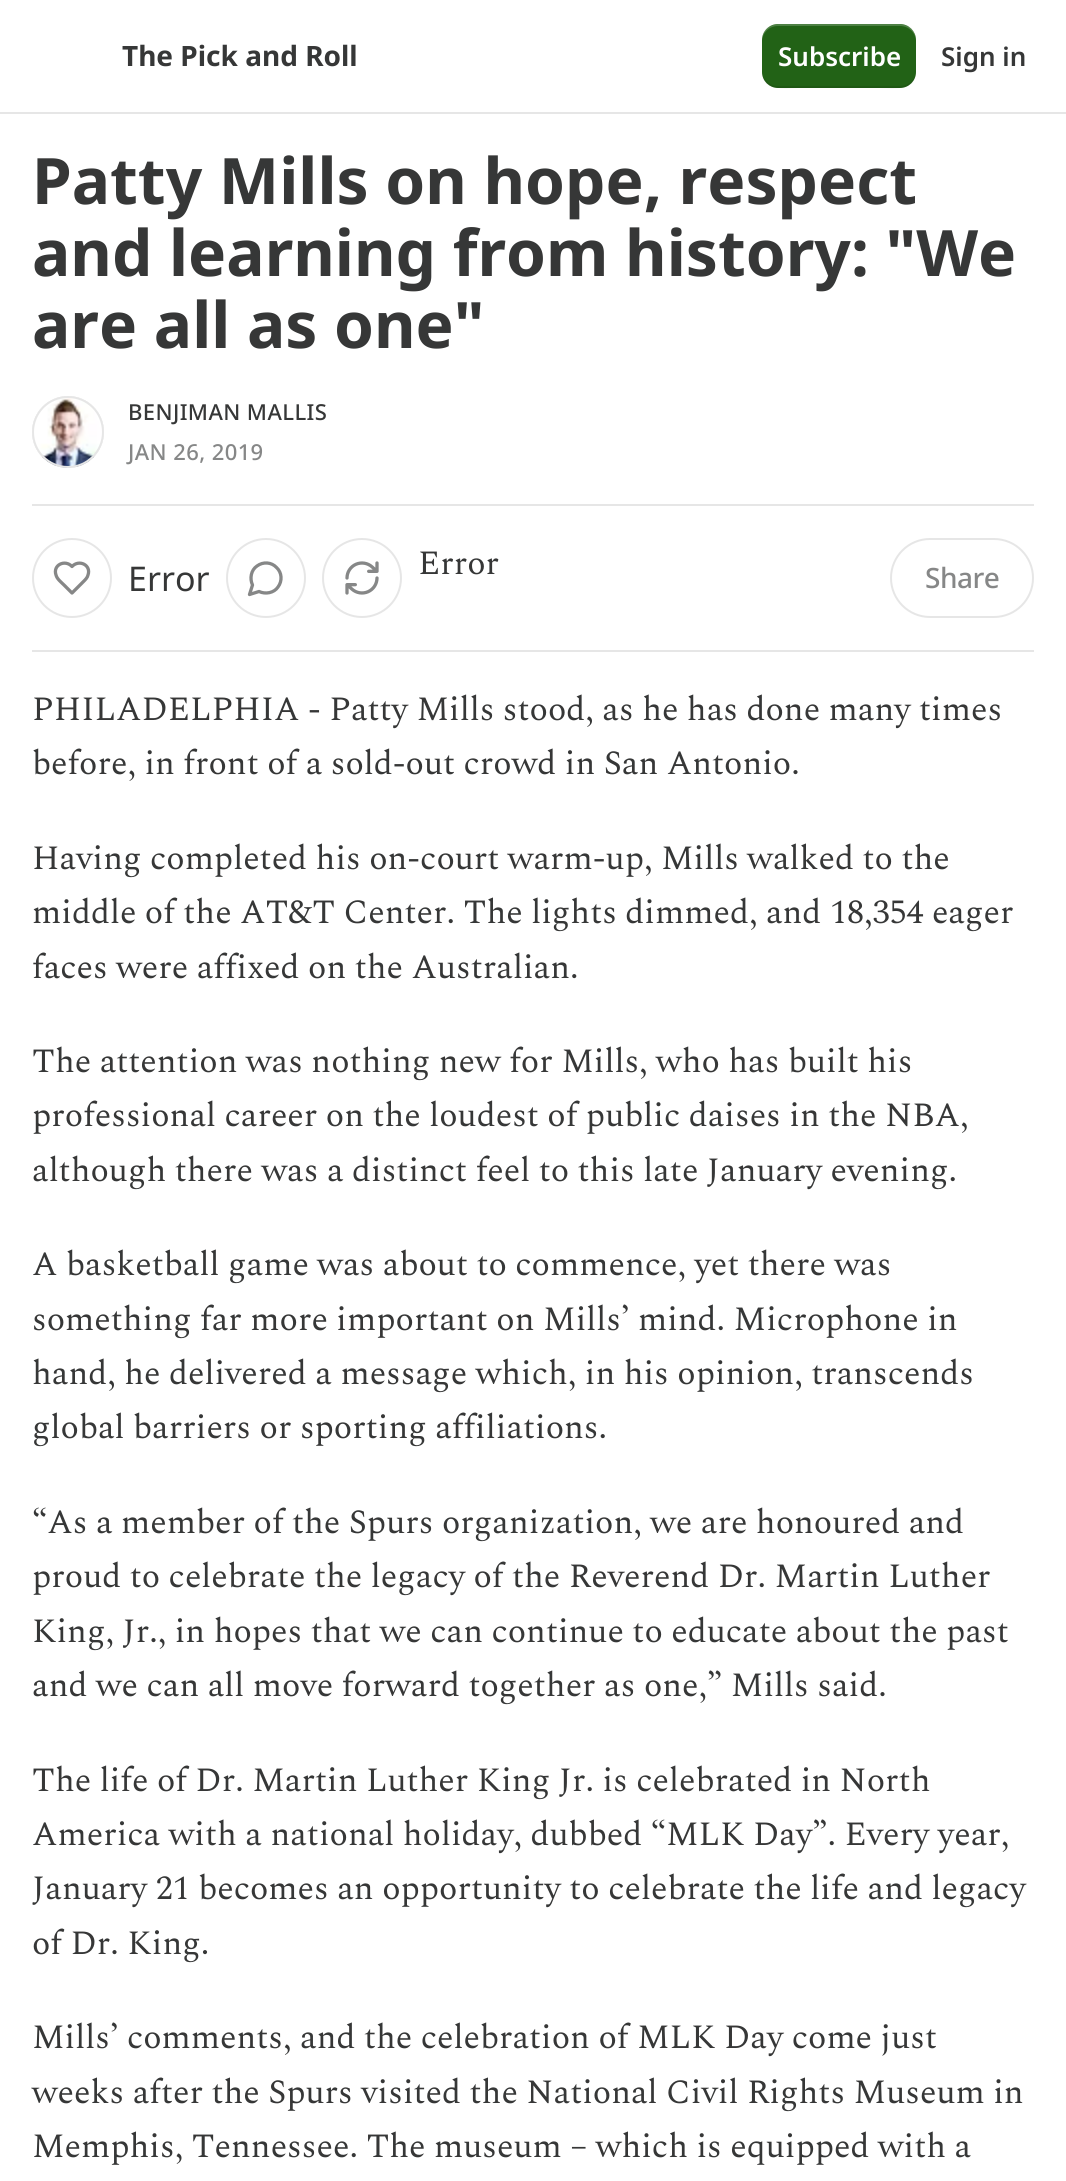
#include <cairo/cairo.h>
#include <math.h>
#include <stddef.h>

typedef struct { double x, y; const char *s; } line_t;
static cairo_t *cr;

static void rgb(unsigned color)
{
	cairo_set_source_rgb(cr, (color >> 16) / 255.0, (color >> 8 & 255) / 255.0, (color & 255) / 255.0);
}

static void tracked(double x, double y, const char *s, double letter, double word)
{
	cairo_move_to(cr, x, y);
	while (*s) {
		char ch[5] = {0};
		int n = 0;
		do ch[n++] = *s++; while ((*s & 0xC0) == 0x80);
		cairo_show_text(cr, ch);
		cairo_rel_move_to(cr, letter + word * (*ch == ' '), 0);
	}
}

static void rrect(double x, double y, double w, double h, double r)
{
	cairo_new_sub_path(cr);
	cairo_arc(cr, x + w - r, y + h - r, r, 0, M_PI / 2);
	cairo_arc(cr, x + r, y + h - r, r, M_PI / 2, M_PI);
	cairo_arc(cr, x + r, y + r, r, M_PI, 1.5 * M_PI);
	cairo_arc(cr, x + w - r, y + r, r, 1.5 * M_PI, 2 * M_PI);
	cairo_close_path(cr);
}

static void image(const char *path, double x, double y, double w, double h)
{
	cairo_surface_t *image = cairo_image_surface_create_from_png(path);
	cairo_save(cr);
	cairo_set_source_surface(cr, image, x, y);
	cairo_rectangle(cr, x, y, w, h);
	cairo_fill(cr);
	cairo_restore(cr);
	cairo_surface_destroy(image);
}

int main(void) {
	cairo_surface_t *surface = cairo_image_surface_create(CAIRO_FORMAT_RGB24, 1066, 2181);
	cr = cairo_create(surface);
	cairo_font_options_t *options = cairo_font_options_create();
	cairo_font_options_set_hint_metrics(options, CAIRO_HINT_METRICS_OFF);
	cairo_font_options_set_hint_style(options, CAIRO_HINT_STYLE_NONE);
	cairo_set_font_options(cr, options);
	cairo_set_miter_limit(cr, 4);
	rgb(0xffffff);
	cairo_paint(cr);
	rgb(0xe6e6e6);
	cairo_rectangle(cr, 0, 112, 1066, 2);
	cairo_fill(cr);
	rgb(0x226216);
	rrect(762, 24, 154, 64, 16);
	cairo_fill(cr);
	cairo_set_source_rgba(cr, 0, 0, 0, 0.1);
	cairo_new_path(cr);
	cairo_move_to(cr, 762, 70);
	cairo_curve_to(cr, 762, 92, 782, 88, 798, 88);
	cairo_line_to(cr, 880, 88);
	cairo_curve_to(cr, 896, 88, 916, 92, 916, 70);
	cairo_curve_to(cr, 916, 79, 909, 86, 900, 86);
	cairo_line_to(cr, 778, 86);
	cairo_curve_to(cr, 769, 86, 762, 79, 762, 70);
	cairo_close_path(cr);
	cairo_fill(cr);
	cairo_set_source_rgba(cr, 1, 1, 1, 0.2);
	cairo_new_path(cr);
	cairo_move_to(cr, 778, 26);
	cairo_line_to(cr, 900, 26);
	cairo_curve_to(cr, 909, 26, 916, 33, 916, 42);
	cairo_curve_to(cr, 916, 20, 896, 24, 880, 24);
	cairo_line_to(cr, 798, 24);
	cairo_curve_to(cr, 782, 24, 762, 20, 762, 42);
	cairo_curve_to(cr, 762, 33, 769, 26, 778, 26);
	cairo_close_path(cr);
	cairo_fill(cr);
	cairo_arc(cr, 68, 432, 35, 0, 2 * M_PI);
	rgb(0xe6e6e6);
	cairo_stroke(cr);
	image("img/1.png", 32, 396, 72, 72);
	cairo_arc(cr, 68, 432, 35, 0, 2 * M_PI);
	cairo_stroke(cr);
	cairo_rectangle(cr, 32, 504, 1002, 2);
	cairo_fill(cr);
	cairo_rectangle(cr, 32, 650, 1002, 2);
	cairo_fill(cr);
	cairo_arc(cr, 266, 578, 39, 0, 2 * M_PI);
	cairo_stroke(cr);
	cairo_new_path(cr);
	cairo_move_to(cr, 259, 591.5);
	cairo_curve_to(cr, 265.5, 594.5, 274, 593, 278, 587);
	cairo_curve_to(cr, 282.5, 581, 282, 572.5, 276.5, 567.5);
	cairo_curve_to(cr, 271.5, 562, 263, 561.5, 257, 566);
	cairo_curve_to(cr, 251, 570, 249.5, 578.5, 252.5, 585);
	cairo_line_to(cr, 249.5, 594.5);
	cairo_close_path(cr);
	rgb(0x868787);
	cairo_set_line_width(cr, 3.3);
	cairo_set_line_cap(cr, CAIRO_LINE_CAP_ROUND);
	cairo_set_line_join(cr, CAIRO_LINE_JOIN_ROUND);
	cairo_stroke(cr);
	cairo_arc(cr, 362, 578, 39, 0, 2 * M_PI);
	rgb(0xe6e6e6);
	cairo_set_line_width(cr, 2);
	cairo_set_line_cap(cr, CAIRO_LINE_CAP_BUTT);
	cairo_set_line_join(cr, CAIRO_LINE_JOIN_MITER);
	cairo_stroke(cr);
	image("img/2.png", 345, 561, 34, 34);
	cairo_arc(cr, 72, 578, 39, 0, 2 * M_PI);
	cairo_stroke(cr);
	cairo_new_path(cr);
	cairo_move_to(cr, 83.5, 581.5);
	cairo_curve_to(cr, 85.5, 579.5, 87.5, 577.5, 88, 575);
	cairo_curve_to(cr, 91.5, 565, 79, 559, 72, 566.5);
	cairo_curve_to(cr, 65, 559, 52.5, 565, 56, 575);
	cairo_curve_to(cr, 57, 579, 61, 582, 64, 585);
	cairo_line_to(cr, 72, 593);
	cairo_close_path(cr);
	rgb(0x868787);
	cairo_set_line_width(cr, 3.3);
	cairo_set_line_cap(cr, CAIRO_LINE_CAP_ROUND);
	cairo_set_line_join(cr, CAIRO_LINE_JOIN_ROUND);
	cairo_stroke(cr);
	rrect(891, 539, 142, 78, 39);
	rgb(0xe6e6e6);
	cairo_set_line_width(cr, 2);
	cairo_set_line_cap(cr, CAIRO_LINE_CAP_BUTT);
	cairo_set_line_join(cr, CAIRO_LINE_JOIN_MITER);
	cairo_stroke(cr);
	cairo_select_font_face(cr, "Noto Sans", CAIRO_FONT_SLANT_NORMAL, CAIRO_FONT_WEIGHT_BOLD);
	cairo_set_font_size(cr, 28);
	rgb(0x363737);
	cairo_move_to(cr, 122, 66);
	cairo_show_text(cr, "The Pick and Roll");
	cairo_select_font_face(cr, "Noto Sans SemiBold", CAIRO_FONT_SLANT_NORMAL, CAIRO_FONT_WEIGHT_NORMAL);
	cairo_set_font_size(cr, 26);
	rgb(0xffffff);
	cairo_move_to(cr, 778, 66);
	cairo_show_text(cr, "Subscribe");
	rgb(0x363737);
	cairo_move_to(cr, 941, 66);
	cairo_show_text(cr, "Sign in");
	cairo_select_font_face(cr, "Noto Sans", CAIRO_FONT_SLANT_NORMAL, CAIRO_FONT_WEIGHT_BOLD);
	cairo_set_font_size(cr, 64);
	{
		static const line_t items[] = {
			{32, 204, "Patty Mills on hope, respect"},
			{32, 276, "and learning from history: \"We"},
			{32, 348, "are all as one\""},
		};
		for (size_t i = 0; i < sizeof items / sizeof *items; i++) {
			cairo_move_to(cr, items[i].x, items[i].y);
			cairo_show_text(cr, items[i].s);
		}
	}
	cairo_select_font_face(cr, "Noto Sans Medium", CAIRO_FONT_SLANT_NORMAL, CAIRO_FONT_WEIGHT_NORMAL);
	cairo_set_font_size(cr, 22);
	tracked(128, 420, "BENJIMAN MALLIS", 0.4, 0);
	rgb(0x868787);
	tracked(128, 460, "JAN 26, 2019", 0.4, 0);
	cairo_select_font_face(cr, "Spectral", CAIRO_FONT_SLANT_NORMAL, CAIRO_FONT_WEIGHT_NORMAL);
	cairo_set_font_size(cr, 34);
	rgb(0x363737);
	cairo_move_to(cr, 418, 574);
	cairo_show_text(cr, "Error");
	cairo_select_font_face(cr, "Noto Sans", CAIRO_FONT_SLANT_NORMAL, CAIRO_FONT_WEIGHT_NORMAL);
	cairo_move_to(cr, 128, 591);
	cairo_show_text(cr, "Error");
	cairo_select_font_face(cr, "Noto Sans Medium", CAIRO_FONT_SLANT_NORMAL, CAIRO_FONT_WEIGHT_NORMAL);
	cairo_set_font_size(cr, 28);
	rgb(0x868787);
	tracked(925, 588, "Share", -0.5, 0);
	cairo_select_font_face(cr, "Spectral", CAIRO_FONT_SLANT_NORMAL, CAIRO_FONT_WEIGHT_NORMAL);
	cairo_set_font_size(cr, 34);
	rgb(0x363737);
	{
		static const line_t items[] = {
			{32, 720, "PHILADELPHIA - Patty Mills stood, as he has done many times"},
			{32, 774, "before, in front of a sold-out crowd in San Antonio."},
			{32, 869, "Having completed his on-court warm-up, Mills walked to the"},
			{32, 923, "middle of the AT&T Center. The lights dimmed, and 18,354 eager"},
			{32, 978, "faces were affixed on the Australian."},
			{32, 1072, "The attention was nothing new for Mills, who has built his"},
			{32, 1126, "professional career on the loudest of public daises in the NBA,"},
			{32, 1181, "although there was a distinct feel to this late January evening."},
			{32, 1275, "A basketball game was about to commence, yet there was"},
			{32, 1330, "something far more important on Mills’ mind. Microphone in"},
			{32, 1384, "hand, he delivered a message which, in his opinion, transcends"},
			{32, 1438, "global barriers or sporting affiliations."},
			{32, 1533, "“As a member of the Spurs organization, we are honoured and"},
			{32, 1587, "proud to celebrate the legacy of the Reverend Dr. Martin Luther"},
			{32, 1642, "King, Jr., in hopes that we can continue to educate about the past"},
			{32, 1696, "and we can all move forward together as one,” Mills said."},
			{32, 1791, "The life of Dr. Martin Luther King Jr. is celebrated in North"},
			{32, 1845, "America with a national holiday, dubbed “MLK Day”. Every year,"},
			{32, 1899, "January 21 becomes an opportunity to celebrate the life and legacy"},
			{32, 1954, "of Dr. King."},
			{32, 2048, "Mills’ comments, and the celebration of MLK Day come just"},
			{32, 2103, "weeks after the Spurs visited the National Civil Rights Museum in"},
			{32, 2157, "Memphis, Tennessee. The museum – which is equipped with a"},
		};
		for (size_t i = 0; i < sizeof items / sizeof *items; i++) {
			cairo_move_to(cr, items[i].x, items[i].y);
			cairo_show_text(cr, items[i].s);
		}
	}
	cairo_surface_write_to_png(surface, "page.png");
	cairo_font_options_destroy(options);
	cairo_destroy(cr);
	cairo_surface_destroy(surface);
	return 0;
}
